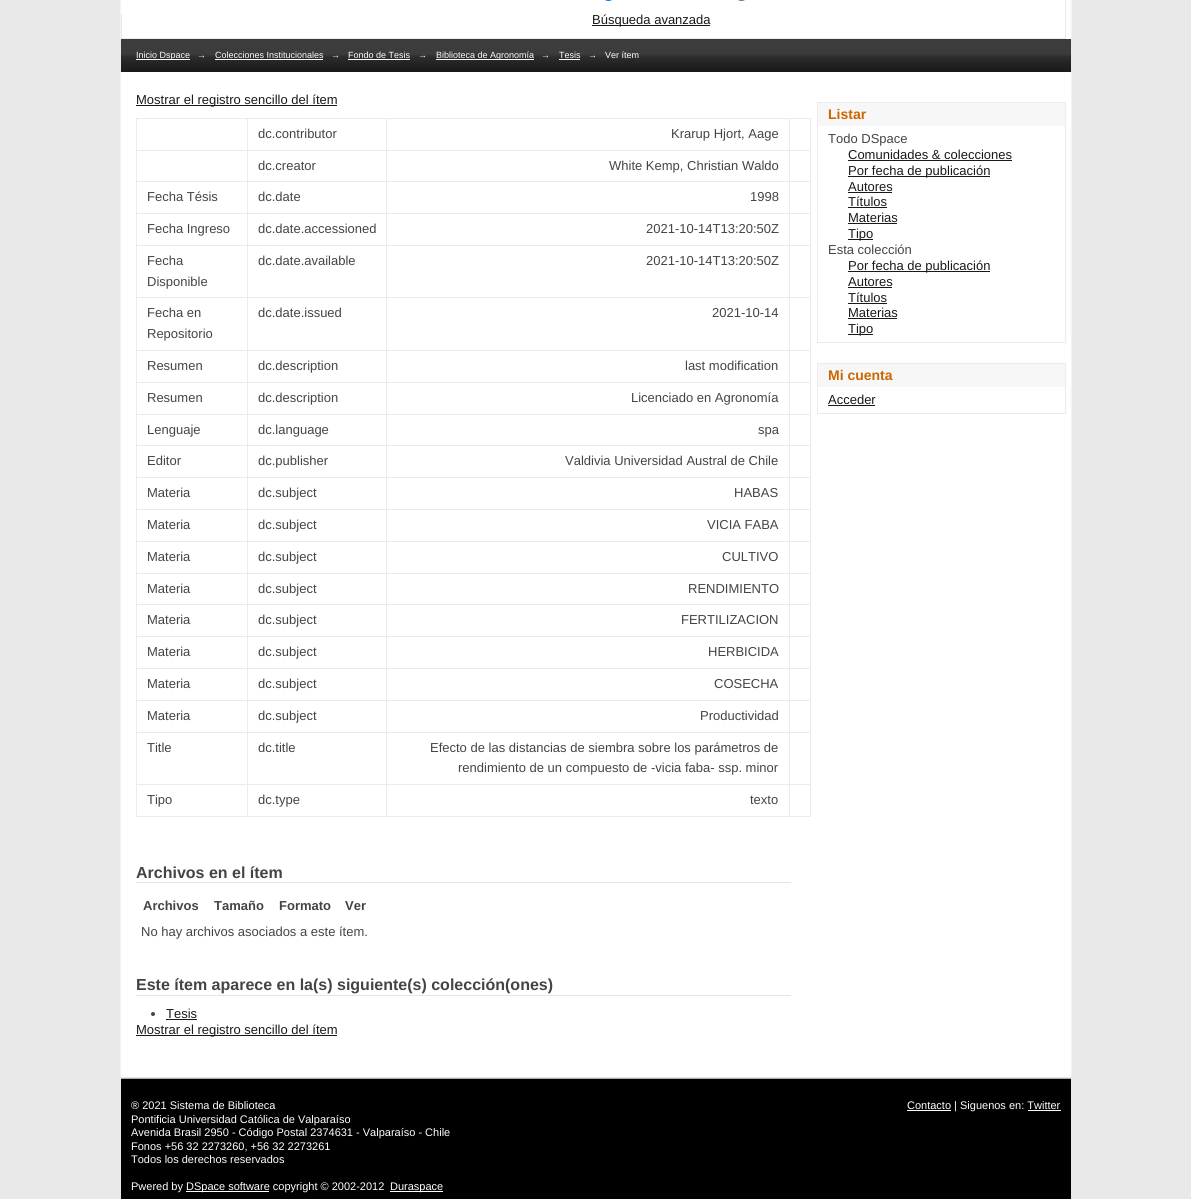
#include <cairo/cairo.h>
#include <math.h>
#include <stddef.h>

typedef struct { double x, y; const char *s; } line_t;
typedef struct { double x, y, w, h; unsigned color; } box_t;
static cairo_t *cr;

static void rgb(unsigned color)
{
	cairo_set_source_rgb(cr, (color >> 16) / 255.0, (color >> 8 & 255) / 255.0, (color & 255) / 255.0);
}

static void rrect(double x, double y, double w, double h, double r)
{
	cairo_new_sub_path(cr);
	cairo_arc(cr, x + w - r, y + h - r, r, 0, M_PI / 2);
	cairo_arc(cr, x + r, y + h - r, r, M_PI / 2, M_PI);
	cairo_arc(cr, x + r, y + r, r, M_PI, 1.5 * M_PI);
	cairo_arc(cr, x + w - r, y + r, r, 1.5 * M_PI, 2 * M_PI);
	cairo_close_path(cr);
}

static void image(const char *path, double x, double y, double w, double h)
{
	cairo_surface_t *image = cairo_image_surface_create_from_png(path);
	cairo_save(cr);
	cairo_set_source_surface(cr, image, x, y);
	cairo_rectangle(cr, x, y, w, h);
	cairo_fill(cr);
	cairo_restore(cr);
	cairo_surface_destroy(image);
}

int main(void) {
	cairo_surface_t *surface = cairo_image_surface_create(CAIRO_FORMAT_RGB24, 1191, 1199);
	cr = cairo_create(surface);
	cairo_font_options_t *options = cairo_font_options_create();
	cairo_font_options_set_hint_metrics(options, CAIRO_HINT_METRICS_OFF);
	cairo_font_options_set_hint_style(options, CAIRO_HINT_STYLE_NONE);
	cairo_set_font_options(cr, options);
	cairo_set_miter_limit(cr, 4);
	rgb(0xe9e9e9);
	cairo_paint(cr);
	{
		static const box_t items[] = {
			{122, 0, 949, 39, 0xffffff},
			{1071, 0, 1, 39, 0xf3f3f3},
			{120, 0, 1, 39, 0xf3f3f3},
			{121, 0, 1, 14, 0xffffff},
			{1065, 0, 1, 39, 0xebebeb},
			{121, 38, 945, 1, 0xebebeb},
		};
		for (size_t i = 0; i < sizeof items / sizeof *items; i++) {
			rgb(items[i].color);
			cairo_rectangle(cr, items[i].x, items[i].y, items[i].w, items[i].h);
			cairo_fill(cr);
		}
	}
	rrect(602.5, -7.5, 12, 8, 6);
	rgb(0x0075ff);
	cairo_set_line_width(cr, 1);
	cairo_stroke(cr);
	rrect(735.5, -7.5, 12, 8, 6);
	rgb(0x767676);
	cairo_stroke(cr);
	rgb(0x191919);
	cairo_rectangle(cr, 592, 25, 118, 1);
	cairo_fill(cr);
	image("img/1.png", 121, 39, 950, 33);
	{
		static const box_t items[] = {
			{136, 59, 54, 1, 0xffffff},
			{215, 59, 108, 1, 0xffffff},
			{348, 59, 62, 1, 0xffffff},
			{436, 59, 98, 1, 0xffffff},
			{559, 59, 21, 1, 0xffffff},
			{121, 72, 950, 1005, 0xffffff},
			{1071, 72, 1, 1005, 0xf3f3f3},
			{120, 72, 1, 1005, 0xf3f3f3},
			{136, 105, 201, 1, 0x191919},
			{136, 118, 675, 1, 0xebebeb},
			{136, 150, 675, 1, 0xebebeb},
			{136, 181, 675, 1, 0xebebeb},
			{136, 213, 675, 1, 0xebebeb},
			{136, 245, 675, 1, 0xebebeb},
			{136, 297, 675, 1, 0xebebeb},
			{136, 350, 675, 1, 0xebebeb},
			{136, 382, 675, 1, 0xebebeb},
			{136, 414, 675, 1, 0xebebeb},
			{136, 445, 675, 1, 0xebebeb},
			{136, 477, 675, 1, 0xebebeb},
			{136, 509, 675, 1, 0xebebeb},
			{136, 541, 675, 1, 0xebebeb},
			{136, 573, 675, 1, 0xebebeb},
			{136, 604, 675, 1, 0xebebeb},
			{136, 636, 675, 1, 0xebebeb},
			{136, 668, 675, 1, 0xebebeb},
			{136, 700, 675, 1, 0xebebeb},
			{136, 732, 675, 1, 0xebebeb},
			{136, 784, 675, 1, 0xebebeb},
			{810, 784, 1, 33, 0xebebeb},
			{810, 732, 1, 53, 0xebebeb},
			{810, 700, 1, 33, 0xebebeb},
			{810, 668, 1, 33, 0xebebeb},
			{810, 636, 1, 33, 0xebebeb},
			{810, 604, 1, 33, 0xebebeb},
			{810, 573, 1, 32, 0xebebeb},
			{810, 541, 1, 33, 0xebebeb},
			{810, 509, 1, 33, 0xebebeb},
			{810, 477, 1, 33, 0xebebeb},
			{810, 445, 1, 33, 0xebebeb},
			{810, 414, 1, 32, 0xebebeb},
			{810, 382, 1, 33, 0xebebeb},
			{810, 350, 1, 33, 0xebebeb},
			{810, 297, 1, 54, 0xebebeb},
			{810, 245, 1, 53, 0xebebeb},
			{810, 213, 1, 33, 0xebebeb},
			{810, 181, 1, 33, 0xebebeb},
			{810, 150, 1, 32, 0xebebeb},
			{810, 118, 1, 33, 0xebebeb},
			{136, 816, 675, 1, 0xebebeb},
			{136, 784, 1, 33, 0xebebeb},
			{136, 732, 1, 53, 0xebebeb},
			{136, 700, 1, 33, 0xebebeb},
			{136, 668, 1, 33, 0xebebeb},
			{136, 636, 1, 33, 0xebebeb},
			{136, 604, 1, 33, 0xebebeb},
			{136, 573, 1, 32, 0xebebeb},
			{136, 541, 1, 33, 0xebebeb},
			{136, 509, 1, 33, 0xebebeb},
			{136, 477, 1, 33, 0xebebeb},
			{136, 445, 1, 33, 0xebebeb},
			{136, 414, 1, 32, 0xebebeb},
			{136, 382, 1, 33, 0xebebeb},
			{136, 350, 1, 33, 0xebebeb},
			{136, 297, 1, 54, 0xebebeb},
			{136, 245, 1, 53, 0xebebeb},
			{136, 213, 1, 33, 0xebebeb},
			{136, 181, 1, 33, 0xebebeb},
			{136, 150, 1, 32, 0xebebeb},
			{136, 118, 1, 33, 0xebebeb},
			{247, 118, 1, 699, 0xebebeb},
			{386, 118, 1, 699, 0xebebeb},
			{789, 118, 1, 699, 0xebebeb},
			{136, 882, 655, 1, 0xd8e8eb},
			{136, 995, 655, 1, 0xd8e8eb},
		};
		for (size_t i = 0; i < sizeof items / sizeof *items; i++) {
			rgb(items[i].color);
			cairo_rectangle(cr, items[i].x, items[i].y, items[i].w, items[i].h);
			cairo_fill(cr);
		}
	}
	rgb(0x444444);
	cairo_arc(cr, 153, 1014, 2, 0, 2 * M_PI);
	cairo_fill(cr);
	{
		static const box_t items[] = {
			{166, 1019, 31, 1, 0x191919},
			{136, 1035, 201, 1, 0x191919},
			{818, 103, 247, 23, 0xf7f7f7},
			{817, 102, 249, 1, 0xebebeb},
			{1065, 102, 1, 241, 0xebebeb},
			{817, 102, 1, 24, 0xebebeb},
			{817, 342, 249, 1, 0xebebeb},
			{817, 126, 1, 217, 0xebebeb},
			{848, 160, 164, 1, 0x191919},
			{848, 176, 142, 1, 0x191919},
			{848, 192, 44, 1, 0x191919},
			{848, 207, 39, 1, 0x191919},
			{848, 223, 49, 1, 0x191919},
			{848, 239, 25, 1, 0x191919},
			{848, 271, 142, 1, 0x191919},
			{848, 287, 44, 1, 0x191919},
			{848, 303, 39, 1, 0x191919},
			{848, 318, 49, 1, 0x191919},
			{848, 334, 25, 1, 0x191919},
			{818, 364, 247, 23, 0xf7f7f7},
			{817, 363, 249, 1, 0xebebeb},
			{1065, 363, 1, 51, 0xebebeb},
			{817, 363, 1, 24, 0xebebeb},
			{817, 413, 249, 1, 0xebebeb},
			{817, 387, 1, 27, 0xebebeb},
			{828, 405, 47, 1, 0x191919},
			{121, 1079, 950, 120, 0x000000},
			{121, 1078, 950, 1, 0x9cacba},
			{186, 1191, 83, 1, 0xffffff},
			{390, 1191, 53, 1, 0xffffff},
			{907, 1110, 44, 1, 0xffffff},
			{1028, 1110, 33, 1, 0xffffff},
		};
		for (size_t i = 0; i < sizeof items / sizeof *items; i++) {
			rgb(items[i].color);
			cairo_rectangle(cr, items[i].x, items[i].y, items[i].w, items[i].h);
			cairo_fill(cr);
		}
	}
	cairo_select_font_face(cr, "Liberation Sans", CAIRO_FONT_SLANT_NORMAL, CAIRO_FONT_WEIGHT_NORMAL);
	cairo_set_font_size(cr, 13);
	rgb(0x191919);
	cairo_move_to(cr, 592, 24);
	cairo_show_text(cr, "Búsqueda avanzada");
	cairo_set_font_size(cr, 9);
	rgb(0xffffff);
	{
		static const line_t items[] = {
			{136, 58, "Inicio Dspace"},
			{197, 58, "→"},
			{215, 58, "Colecciones Institucionales"},
			{331, 58, "→"},
			{348, 58, "Fondo de Tesis"},
			{418, 58, "→"},
			{436, 58, "Biblioteca de Agronomía"},
			{541, 58, "→"},
			{559, 58, "Tesis"},
			{588, 58, "→"},
			{605, 58, "Ver ítem"},
		};
		for (size_t i = 0; i < sizeof items / sizeof *items; i++) {
			cairo_move_to(cr, items[i].x, items[i].y);
			cairo_show_text(cr, items[i].s);
		}
	}
	cairo_set_font_size(cr, 13);
	rgb(0x191919);
	cairo_move_to(cr, 136, 104);
	cairo_show_text(cr, "Mostrar el registro sencillo del ítem");
	rgb(0x444444);
	{
		static const line_t items[] = {
			{258, 138, "dc.contributor"},
			{671, 138, "Krarup Hjort, Aage"},
			{258, 170, "dc.creator"},
			{609, 170, "White Kemp, Christian Waldo"},
			{147, 201, "Fecha Tésis"},
			{258, 201, "dc.date"},
			{750, 201, "1998"},
			{147, 233, "Fecha Ingreso"},
			{258, 233, "dc.date.accessioned"},
			{646, 233, "2021-10-14T13:20:50Z"},
			{147, 265, "Fecha"},
			{147, 286, "Disponible"},
			{258, 265, "dc.date.available"},
			{646, 265, "2021-10-14T13:20:50Z"},
			{147, 317, "Fecha en"},
			{147, 338, "Repositorio"},
			{258, 317, "dc.date.issued"},
			{712, 317, "2021-10-14"},
			{147, 370, "Resumen"},
			{258, 370, "dc.description"},
			{685, 370, "last modification"},
			{147, 402, "Resumen"},
			{258, 402, "dc.description"},
			{631, 402, "Licenciado en Agronomía"},
			{147, 434, "Lenguaje"},
			{258, 434, "dc.language"},
			{758, 434, "spa"},
			{147, 465, "Editor"},
			{258, 465, "dc.publisher"},
			{565, 465, "Valdivia Universidad Austral de Chile"},
			{147, 497, "Materia"},
			{258, 497, "dc.subject"},
			{734, 497, "HABAS"},
			{147, 529, "Materia"},
			{258, 529, "dc.subject"},
			{707, 529, "VICIA FABA"},
			{147, 561, "Materia"},
			{258, 561, "dc.subject"},
			{722, 561, "CULTIVO"},
			{147, 593, "Materia"},
			{258, 593, "dc.subject"},
			{688, 593, "RENDIMIENTO"},
			{147, 624, "Materia"},
			{258, 624, "dc.subject"},
			{681, 624, "FERTILIZACION"},
			{147, 656, "Materia"},
			{258, 656, "dc.subject"},
			{708, 656, "HERBICIDA"},
			{147, 688, "Materia"},
			{258, 688, "dc.subject"},
			{714, 688, "COSECHA"},
			{147, 720, "Materia"},
			{258, 720, "dc.subject"},
			{700, 720, "Productividad"},
			{147, 752, "Title"},
			{258, 752, "dc.title"},
			{430, 752, "Efecto de las distancias de siembra sobre los parámetros de"},
			{458, 772, "rendimiento de un compuesto de -vicia faba- ssp. minor"},
			{147, 804, "Tipo"},
			{258, 804, "dc.type"},
			{750, 804, "texto"},
		};
		for (size_t i = 0; i < sizeof items / sizeof *items; i++) {
			cairo_move_to(cr, items[i].x, items[i].y);
			cairo_show_text(cr, items[i].s);
		}
	}
	cairo_select_font_face(cr, "Liberation Sans", CAIRO_FONT_SLANT_NORMAL, CAIRO_FONT_WEIGHT_BOLD);
	cairo_set_font_size(cr, 16);
	cairo_move_to(cr, 136, 878);
	cairo_show_text(cr, "Archivos en el ítem");
	cairo_set_font_size(cr, 13);
	{
		static const line_t items[] = {
			{143, 910, "Archivos"},
			{214, 910, "Tamaño"},
			{279, 910, "Formato"},
			{345, 910, "Ver"},
		};
		for (size_t i = 0; i < sizeof items / sizeof *items; i++) {
			cairo_move_to(cr, items[i].x, items[i].y);
			cairo_show_text(cr, items[i].s);
		}
	}
	cairo_select_font_face(cr, "Liberation Sans", CAIRO_FONT_SLANT_NORMAL, CAIRO_FONT_WEIGHT_NORMAL);
	cairo_move_to(cr, 141, 936);
	cairo_show_text(cr, "No hay archivos asociados a este ítem.");
	cairo_select_font_face(cr, "Liberation Sans", CAIRO_FONT_SLANT_NORMAL, CAIRO_FONT_WEIGHT_BOLD);
	cairo_set_font_size(cr, 16);
	cairo_move_to(cr, 136, 990);
	cairo_show_text(cr, "Este ítem aparece en la(s) siguiente(s) colección(ones)");
	cairo_select_font_face(cr, "Liberation Sans", CAIRO_FONT_SLANT_NORMAL, CAIRO_FONT_WEIGHT_NORMAL);
	cairo_set_font_size(cr, 13);
	rgb(0x191919);
	cairo_move_to(cr, 166, 1018);
	cairo_show_text(cr, "Tesis");
	cairo_move_to(cr, 136, 1034);
	cairo_show_text(cr, "Mostrar el registro sencillo del ítem");
	cairo_select_font_face(cr, "Liberation Sans", CAIRO_FONT_SLANT_NORMAL, CAIRO_FONT_WEIGHT_BOLD);
	cairo_set_font_size(cr, 14);
	rgb(0xcc6600);
	cairo_move_to(cr, 828, 119);
	cairo_show_text(cr, "Listar");
	cairo_select_font_face(cr, "Liberation Sans", CAIRO_FONT_SLANT_NORMAL, CAIRO_FONT_WEIGHT_NORMAL);
	cairo_set_font_size(cr, 13);
	rgb(0x444444);
	cairo_move_to(cr, 828, 143);
	cairo_show_text(cr, "Todo DSpace");
	rgb(0x191919);
	{
		static const line_t items[] = {
			{848, 159, "Comunidades & colecciones"},
			{848, 175, "Por fecha de publicación"},
			{848, 191, "Autores"},
			{848, 206, "Títulos"},
			{848, 222, "Materias"},
			{848, 238, "Tipo"},
		};
		for (size_t i = 0; i < sizeof items / sizeof *items; i++) {
			cairo_move_to(cr, items[i].x, items[i].y);
			cairo_show_text(cr, items[i].s);
		}
	}
	rgb(0x444444);
	cairo_move_to(cr, 828, 254);
	cairo_show_text(cr, "Esta colección");
	rgb(0x191919);
	{
		static const line_t items[] = {
			{848, 270, "Por fecha de publicación"},
			{848, 286, "Autores"},
			{848, 302, "Títulos"},
			{848, 317, "Materias"},
			{848, 333, "Tipo"},
		};
		for (size_t i = 0; i < sizeof items / sizeof *items; i++) {
			cairo_move_to(cr, items[i].x, items[i].y);
			cairo_show_text(cr, items[i].s);
		}
	}
	cairo_select_font_face(cr, "Liberation Sans", CAIRO_FONT_SLANT_NORMAL, CAIRO_FONT_WEIGHT_BOLD);
	cairo_set_font_size(cr, 14);
	rgb(0xcc6600);
	cairo_move_to(cr, 828, 380);
	cairo_show_text(cr, "Mi cuenta");
	cairo_select_font_face(cr, "Liberation Sans", CAIRO_FONT_SLANT_NORMAL, CAIRO_FONT_WEIGHT_NORMAL);
	cairo_set_font_size(cr, 13);
	rgb(0x191919);
	cairo_move_to(cr, 828, 404);
	cairo_show_text(cr, "Acceder");
	cairo_set_font_size(cr, 11);
	rgb(0xffffff);
	{
		static const line_t items[] = {
			{131, 1109, "® 2021 Sistema de Biblioteca"},
			{131, 1123, "Pontificia Universidad Católica de Valparaíso"},
			{131, 1136, "Avenida Brasil 2950 - Código Postal 2374631 - Valparaíso - Chile"},
			{131, 1150, "Fonos +56 32 2273260, +56 32 2273261"},
			{131, 1163, "Todos los derechos reservados"},
			{131, 1190, "Pwered by"},
			{186, 1190, "DSpace software copyright © 2002-2012"},
			{390, 1190, "Duraspace"},
			{907, 1109, "Contacto | Siguenos en: Twitter"},
		};
		for (size_t i = 0; i < sizeof items / sizeof *items; i++) {
			cairo_move_to(cr, items[i].x, items[i].y);
			cairo_show_text(cr, items[i].s);
		}
	}
	cairo_surface_write_to_png(surface, "page.png");
	cairo_font_options_destroy(options);
	cairo_destroy(cr);
	cairo_surface_destroy(surface);
	return 0;
}
